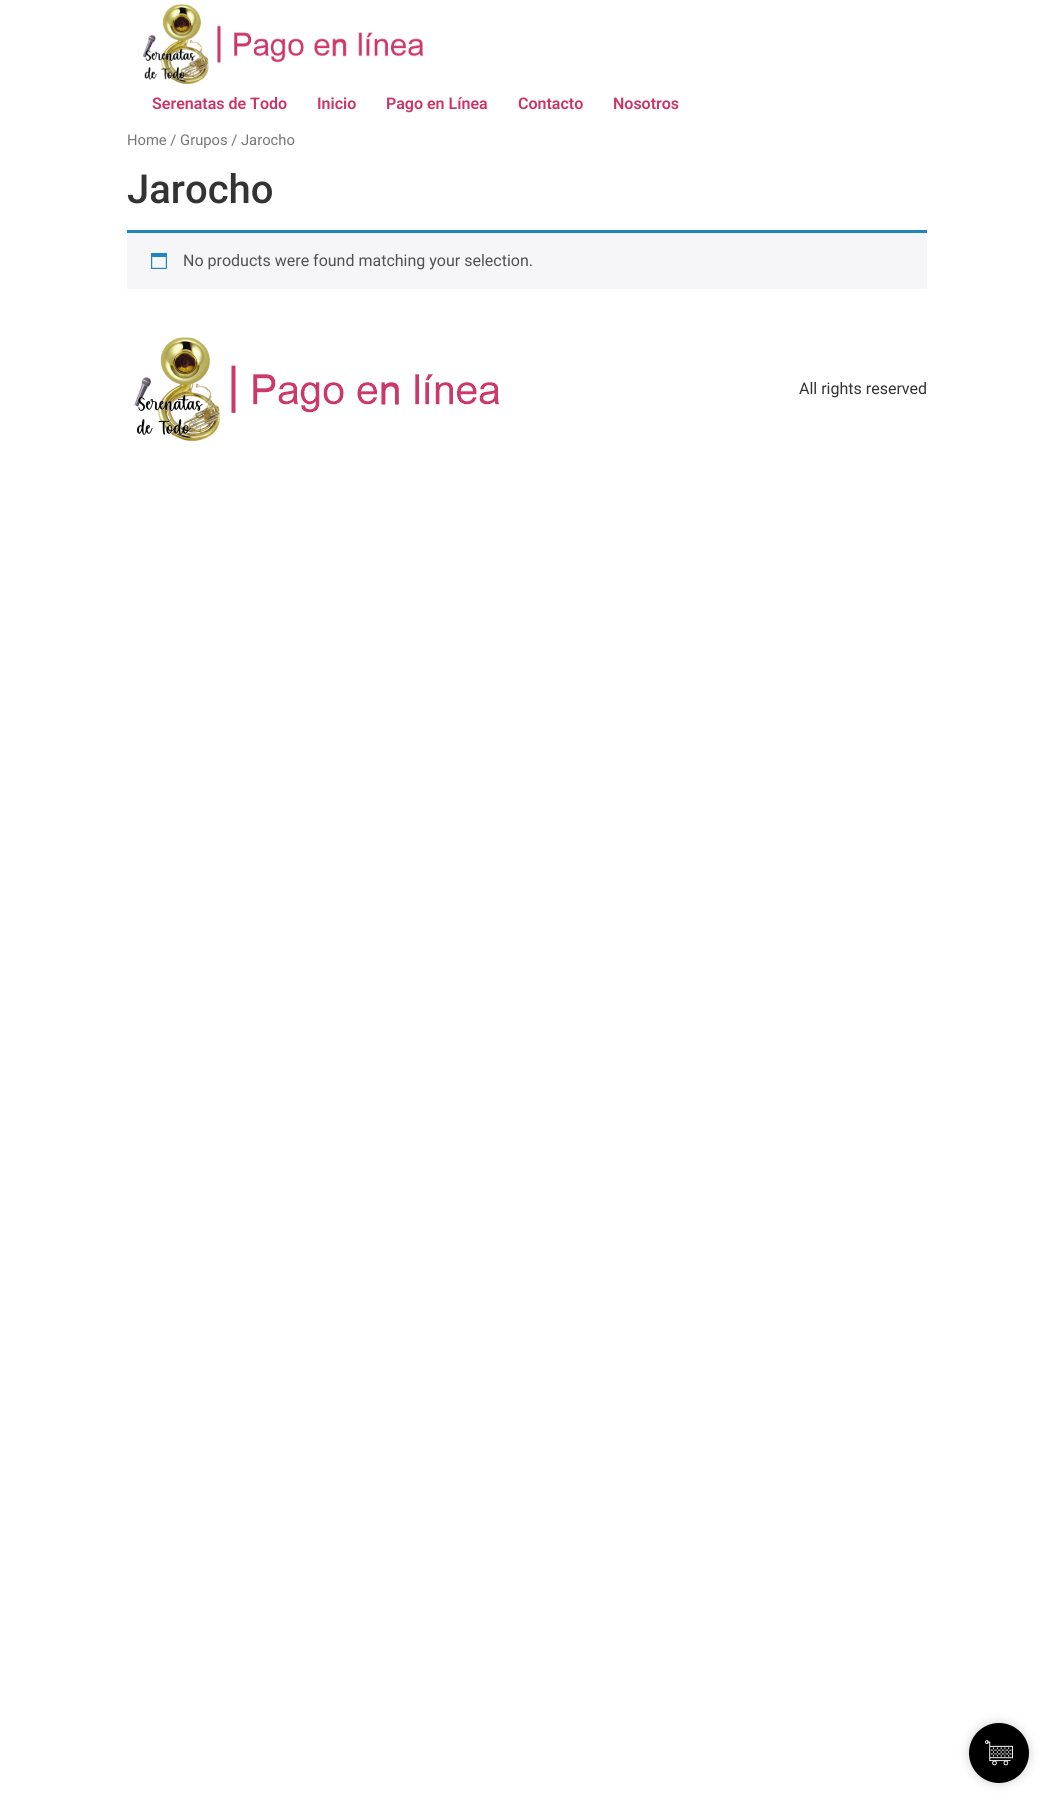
#include <cairo/cairo.h>
#include <math.h>
#include <stddef.h>

typedef struct { double x, y; const char *s; } line_t;
static cairo_t *cr;

static void rgb(unsigned color)
{
	cairo_set_source_rgb(cr, (color >> 16) / 255.0, (color >> 8 & 255) / 255.0, (color & 255) / 255.0);
}

static void rrect(double x, double y, double w, double h, double r)
{
	cairo_new_sub_path(cr);
	cairo_arc(cr, x + w - r, y + h - r, r, 0, M_PI / 2);
	cairo_arc(cr, x + r, y + h - r, r, M_PI / 2, M_PI);
	cairo_arc(cr, x + r, y + r, r, M_PI, 1.5 * M_PI);
	cairo_arc(cr, x + w - r, y + r, r, 1.5 * M_PI, 2 * M_PI);
	cairo_close_path(cr);
}

static void soft_shadow(double x, double y, double w, double h, double r, double blur, double alpha)
{
	cairo_push_group_with_content(cr, CAIRO_CONTENT_ALPHA);
	cairo_set_operator(cr, CAIRO_OPERATOR_SOURCE);
	for (int i = 15; i >= -15 && fmin(w, h) + blur * i / 3 > 0; i -= 2) {
		double e = blur * i / 6;
		cairo_set_source_rgba(cr, 0, 0, 0, alpha * erfc((i - 1) / 8.5) / 2);
		rrect(x - e, y - e, w + 2 * e, h + 2 * e, fmax(0, fmin(r + e + blur * .6, fmin(w, h) / 2 + e)));
		cairo_fill(cr);
	}
	cairo_pattern_t *soft = cairo_pop_group(cr);
	cairo_mask(cr, soft);
	cairo_pattern_destroy(soft);
}

static void image(const char *path, double x, double y, double w, double h)
{
	cairo_surface_t *image = cairo_image_surface_create_from_png(path);
	cairo_save(cr);
	cairo_set_source_surface(cr, image, x, y);
	cairo_rectangle(cr, x, y, w, h);
	cairo_fill(cr);
	cairo_restore(cr);
	cairo_surface_destroy(image);
}

int main(void) {
	cairo_surface_t *surface = cairo_image_surface_create(CAIRO_FORMAT_RGB24, 1054, 1808);
	cr = cairo_create(surface);
	cairo_font_options_t *options = cairo_font_options_create();
	cairo_font_options_set_hint_metrics(options, CAIRO_HINT_METRICS_OFF);
	cairo_font_options_set_hint_style(options, CAIRO_HINT_STYLE_NONE);
	cairo_set_font_options(cr, options);
	cairo_set_miter_limit(cr, 4);
	rgb(0xffffff);
	cairo_paint(cr);
	image("img/1.png", 142, 4, 282, 80);
	rgb(0xf6f5f8);
	cairo_rectangle(cr, 127, 233, 800, 56);
	cairo_fill(cr);
	rgb(0x1e85be);
	cairo_rectangle(cr, 127, 230, 800, 3);
	cairo_fill(cr);
	image("img/2.png", 151, 253, 16, 16);
	image("img/3.png", 134, 337, 366, 104);
	rgb(0x000000);
	soft_shadow(969, 1723, 60, 60, 30, 5, 0.19);
	rgb(0x000000);
	cairo_arc(cr, 999, 1753, 30, 0, 2 * M_PI);
	cairo_fill(cr);
	image("img/4.png", 985, 1740, 28, 26);
	cairo_select_font_face(cr, "Roboto SemiBold", CAIRO_FONT_SLANT_NORMAL, CAIRO_FONT_WEIGHT_NORMAL);
	cairo_set_font_size(cr, 16);
	rgb(0xcc3366);
	{
		static const line_t items[] = {
			{152, 109, "Serenatas de Todo"},
			{317, 109, "Inicio"},
			{386, 109, "Pago en Línea"},
			{518, 109, "Contacto"},
			{613, 109, "Nosotros"},
		};
		for (size_t i = 0; i < sizeof items / sizeof *items; i++) {
			cairo_move_to(cr, items[i].x, items[i].y);
			cairo_show_text(cr, items[i].s);
		}
	}
	cairo_select_font_face(cr, "Roboto", CAIRO_FONT_SLANT_NORMAL, CAIRO_FONT_WEIGHT_NORMAL);
	cairo_set_font_size(cr, 14.75);
	rgb(0x767676);
	cairo_move_to(cr, 127, 145);
	cairo_show_text(cr, "Home / Grupos / Jarocho");
	cairo_select_font_face(cr, "Roboto Medium", CAIRO_FONT_SLANT_NORMAL, CAIRO_FONT_WEIGHT_NORMAL);
	cairo_set_font_size(cr, 40);
	rgb(0x333333);
	cairo_move_to(cr, 127, 203);
	cairo_show_text(cr, "Jarocho");
	cairo_select_font_face(cr, "Roboto", CAIRO_FONT_SLANT_NORMAL, CAIRO_FONT_WEIGHT_NORMAL);
	cairo_set_font_size(cr, 16);
	rgb(0x515151);
	cairo_move_to(cr, 183, 266);
	cairo_show_text(cr, "No products were found matching your selection.");
	rgb(0x333333);
	cairo_move_to(cr, 799, 394);
	cairo_show_text(cr, "All rights reserved");
	cairo_surface_write_to_png(surface, "page.png");
	cairo_font_options_destroy(options);
	cairo_destroy(cr);
	cairo_surface_destroy(surface);
	return 0;
}
